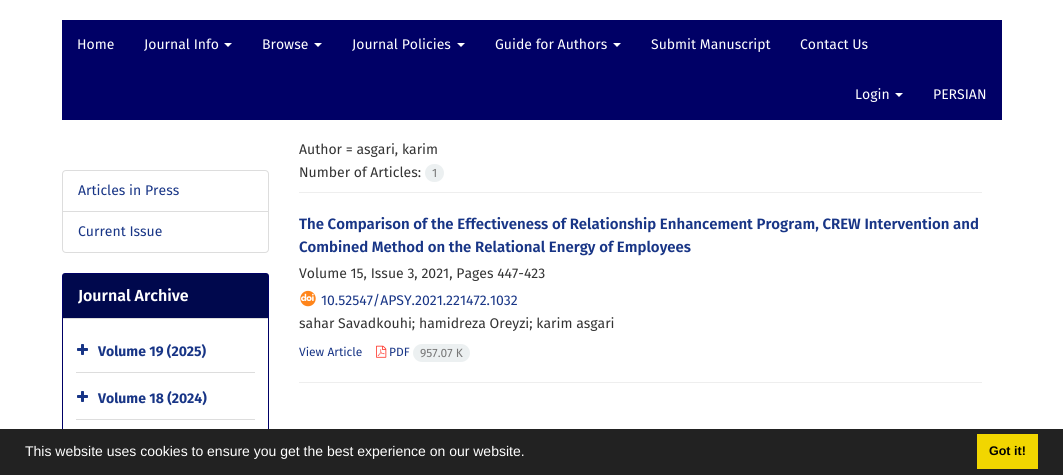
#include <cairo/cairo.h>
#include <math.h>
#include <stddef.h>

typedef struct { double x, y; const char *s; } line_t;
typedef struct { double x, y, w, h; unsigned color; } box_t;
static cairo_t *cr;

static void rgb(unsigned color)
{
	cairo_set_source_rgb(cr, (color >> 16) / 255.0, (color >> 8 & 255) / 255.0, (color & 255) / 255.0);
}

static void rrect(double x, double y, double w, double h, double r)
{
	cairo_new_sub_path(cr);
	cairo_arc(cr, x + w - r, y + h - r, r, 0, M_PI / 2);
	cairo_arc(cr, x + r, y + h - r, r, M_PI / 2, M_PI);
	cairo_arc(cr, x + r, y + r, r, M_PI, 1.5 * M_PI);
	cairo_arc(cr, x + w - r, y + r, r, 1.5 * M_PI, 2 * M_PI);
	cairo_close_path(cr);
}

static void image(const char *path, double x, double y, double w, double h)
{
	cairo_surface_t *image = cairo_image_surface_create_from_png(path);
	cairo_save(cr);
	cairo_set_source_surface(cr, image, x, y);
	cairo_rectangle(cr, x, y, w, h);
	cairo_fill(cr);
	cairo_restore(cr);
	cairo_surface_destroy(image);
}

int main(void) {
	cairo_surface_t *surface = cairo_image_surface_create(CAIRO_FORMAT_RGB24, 1063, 475);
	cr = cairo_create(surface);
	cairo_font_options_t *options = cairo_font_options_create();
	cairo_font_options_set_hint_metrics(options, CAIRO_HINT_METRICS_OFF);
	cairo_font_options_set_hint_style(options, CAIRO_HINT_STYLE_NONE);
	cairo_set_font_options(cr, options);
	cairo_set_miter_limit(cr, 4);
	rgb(0xffffff);
	cairo_paint(cr);
	rgb(0x000066);
	cairo_rectangle(cr, 62, 20, 940, 100);
	cairo_fill(cr);
	rgb(0xffffff);
	cairo_new_path(cr);
	cairo_move_to(cr, 224, 43);
	cairo_line_to(cr, 232, 43);
	cairo_line_to(cr, 228, 47);
	cairo_close_path(cr);
	cairo_fill(cr);
	cairo_new_path(cr);
	cairo_move_to(cr, 314, 43);
	cairo_line_to(cr, 322, 43);
	cairo_line_to(cr, 318, 47);
	cairo_close_path(cr);
	cairo_fill(cr);
	cairo_new_path(cr);
	cairo_move_to(cr, 457, 43);
	cairo_line_to(cr, 465, 43);
	cairo_line_to(cr, 461, 47);
	cairo_close_path(cr);
	cairo_fill(cr);
	cairo_new_path(cr);
	cairo_move_to(cr, 613, 43);
	cairo_line_to(cr, 621, 43);
	cairo_line_to(cr, 617, 47);
	cairo_close_path(cr);
	cairo_fill(cr);
	cairo_new_path(cr);
	cairo_move_to(cr, 895, 93);
	cairo_line_to(cr, 903, 93);
	cairo_line_to(cr, 899, 97);
	cairo_close_path(cr);
	cairo_fill(cr);
	cairo_new_path(cr);
	cairo_move_to(cr, 66, 170.5);
	cairo_line_to(cr, 265, 170.5);
	cairo_curve_to(cr, 267, 170.5, 268.5, 172, 268.5, 174);
	cairo_line_to(cr, 268.5, 211.5);
	cairo_line_to(cr, 62.5, 211.5);
	cairo_line_to(cr, 62.5, 174);
	cairo_curve_to(cr, 62.5, 172, 64, 170.5, 66, 170.5);
	cairo_close_path(cr);
	rgb(0xdddddd);
	cairo_set_line_width(cr, 1);
	cairo_stroke(cr);
	rgb(0xffffff);
	cairo_new_path(cr);
	cairo_move_to(cr, 62.5, 211.5);
	cairo_line_to(cr, 268.5, 211.5);
	cairo_line_to(cr, 268.5, 249);
	cairo_curve_to(cr, 268.5, 251, 267, 252.5, 265, 252.5);
	cairo_line_to(cr, 66, 252.5);
	cairo_curve_to(cr, 64, 252.5, 62.5, 251, 62.5, 249);
	cairo_close_path(cr);
	cairo_fill_preserve(cr);
	rgb(0xdddddd);
	cairo_stroke(cr);
	rrect(62.5, 273.5, 206, 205, 2.5);
	rgb(0x000066);
	cairo_stroke(cr);
	{
		static const box_t items[] = {
			{63, 274, 205, 44, 0x00084d},
			{63, 318, 205, 1, 0xdddddd},
			{76, 372, 179, 1, 0xdddddd},
		};
		for (size_t i = 0; i < sizeof items / sizeof *items; i++) {
			rgb(items[i].color);
			cairo_rectangle(cr, items[i].x, items[i].y, items[i].w, items[i].h);
			cairo_fill(cr);
		}
	}
	image("img/1.png", 77, 344, 11, 11);
	cairo_rectangle(cr, 76, 419, 179, 1);
	cairo_fill(cr);
	image("img/1.png", 77, 391, 11, 11);
	rgb(0xeeeeee);
	cairo_rectangle(cr, 299, 192, 683, 1);
	cairo_fill(cr);
	rgb(0xecf0f1);
	rrect(425, 164, 19, 18, 9);
	cairo_fill(cr);
	image("img/2.png", 300, 290, 16, 17);
	image("img/3.png", 376, 345, 11, 13);
	rrect(413, 344, 57, 18, 9);
	cairo_fill(cr);
	{
		static const box_t items[] = {
			{299, 382, 683, 1, 0xeeeeee},
			{0, 429, 1063, 46, 0x222222},
			{977, 434, 61, 35, 0xf1d600},
		};
		for (size_t i = 0; i < sizeof items / sizeof *items; i++) {
			rgb(items[i].color);
			cairo_rectangle(cr, items[i].x, items[i].y, items[i].w, items[i].h);
			cairo_fill(cr);
		}
	}
	cairo_select_font_face(cr, "Fira Sans", CAIRO_FONT_SLANT_NORMAL, CAIRO_FONT_WEIGHT_NORMAL);
	cairo_set_font_size(cr, 14);
	rgb(0xffffff);
	{
		static const line_t items[] = {
			{77, 49, "Home"},
			{144, 49, "Journal Info"},
			{262, 49, "Browse"},
			{352, 49, "Journal Policies"},
			{495, 49, "Guide for Authors"},
			{651, 49, "Submit Manuscript"},
			{800, 49, "Contact Us"},
			{855, 99, "Login"},
			{933, 99, "PERSIAN"},
		};
		for (size_t i = 0; i < sizeof items / sizeof *items; i++) {
			cairo_move_to(cr, items[i].x, items[i].y);
			cairo_show_text(cr, items[i].s);
		}
	}
	rgb(0x183586);
	cairo_move_to(cr, 78, 195);
	cairo_show_text(cr, "Articles in Press");
	cairo_move_to(cr, 78, 236);
	cairo_show_text(cr, "Current Issue");
	cairo_select_font_face(cr, "Fira Sans SemiBold", CAIRO_FONT_SLANT_NORMAL, CAIRO_FONT_WEIGHT_NORMAL);
	cairo_set_font_size(cr, 16);
	rgb(0xffffff);
	cairo_move_to(cr, 78, 301);
	cairo_show_text(cr, "Journal Archive");
	cairo_select_font_face(cr, "Fira Sans", CAIRO_FONT_SLANT_NORMAL, CAIRO_FONT_WEIGHT_BOLD);
	cairo_set_font_size(cr, 14);
	rgb(0x183586);
	cairo_move_to(cr, 98, 356);
	cairo_show_text(cr, "Volume 19 (2025)");
	cairo_move_to(cr, 98, 403);
	cairo_show_text(cr, "Volume 18 (2024)");
	cairo_select_font_face(cr, "Fira Sans", CAIRO_FONT_SLANT_NORMAL, CAIRO_FONT_WEIGHT_NORMAL);
	rgb(0x333333);
	cairo_move_to(cr, 299, 154);
	cairo_show_text(cr, "Author = asgari, karim");
	cairo_move_to(cr, 299, 177);
	cairo_show_text(cr, "Number of Articles:");
	cairo_set_font_size(cr, 12);
	rgb(0x777777);
	cairo_move_to(cr, 432, 177);
	cairo_show_text(cr, "1");
	cairo_select_font_face(cr, "Fira Sans SemiBold", CAIRO_FONT_SLANT_NORMAL, CAIRO_FONT_WEIGHT_NORMAL);
	cairo_set_font_size(cr, 15);
	rgb(0x183586);
	cairo_move_to(cr, 299, 229);
	cairo_show_text(cr, "The Comparison of the Effectiveness of Relationship Enhancement Program, CREW Intervention and");
	cairo_move_to(cr, 299, 252);
	cairo_show_text(cr, "Combined Method on the Relational Energy of Employees");
	cairo_select_font_face(cr, "Fira Sans", CAIRO_FONT_SLANT_NORMAL, CAIRO_FONT_WEIGHT_NORMAL);
	cairo_set_font_size(cr, 14);
	rgb(0x333333);
	cairo_move_to(cr, 299, 278);
	cairo_show_text(cr, "Volume 15, Issue 3, 2021, Pages 447-423");
	rgb(0x183586);
	cairo_move_to(cr, 321, 305);
	cairo_show_text(cr, "10.52547/APSY.2021.221472.1032");
	rgb(0x333333);
	cairo_move_to(cr, 299, 328);
	cairo_show_text(cr, "sahar Savadkouhi; hamidreza Oreyzi; karim asgari");
	cairo_set_font_size(cr, 12);
	rgb(0x183586);
	cairo_move_to(cr, 299, 356);
	cairo_show_text(cr, "View Article");
	cairo_move_to(cr, 389, 356);
	cairo_show_text(cr, "PDF");
	rgb(0x777777);
	cairo_move_to(cr, 420, 357);
	cairo_show_text(cr, "957.07 K");
	cairo_select_font_face(cr, "Liberation Sans", CAIRO_FONT_SLANT_NORMAL, CAIRO_FONT_WEIGHT_NORMAL);
	cairo_set_font_size(cr, 14);
	rgb(0xffffff);
	cairo_move_to(cr, 25, 456);
	cairo_show_text(cr, "This website uses cookies to ensure you get the best experience on our website.");
	cairo_select_font_face(cr, "Liberation Sans", CAIRO_FONT_SLANT_NORMAL, CAIRO_FONT_WEIGHT_BOLD);
	cairo_set_font_size(cr, 12.5);
	rgb(0x000000);
	cairo_move_to(cr, 989, 455);
	cairo_show_text(cr, "Got it!");
	cairo_surface_write_to_png(surface, "page.png");
	cairo_font_options_destroy(options);
	cairo_destroy(cr);
	cairo_surface_destroy(surface);
	return 0;
}
